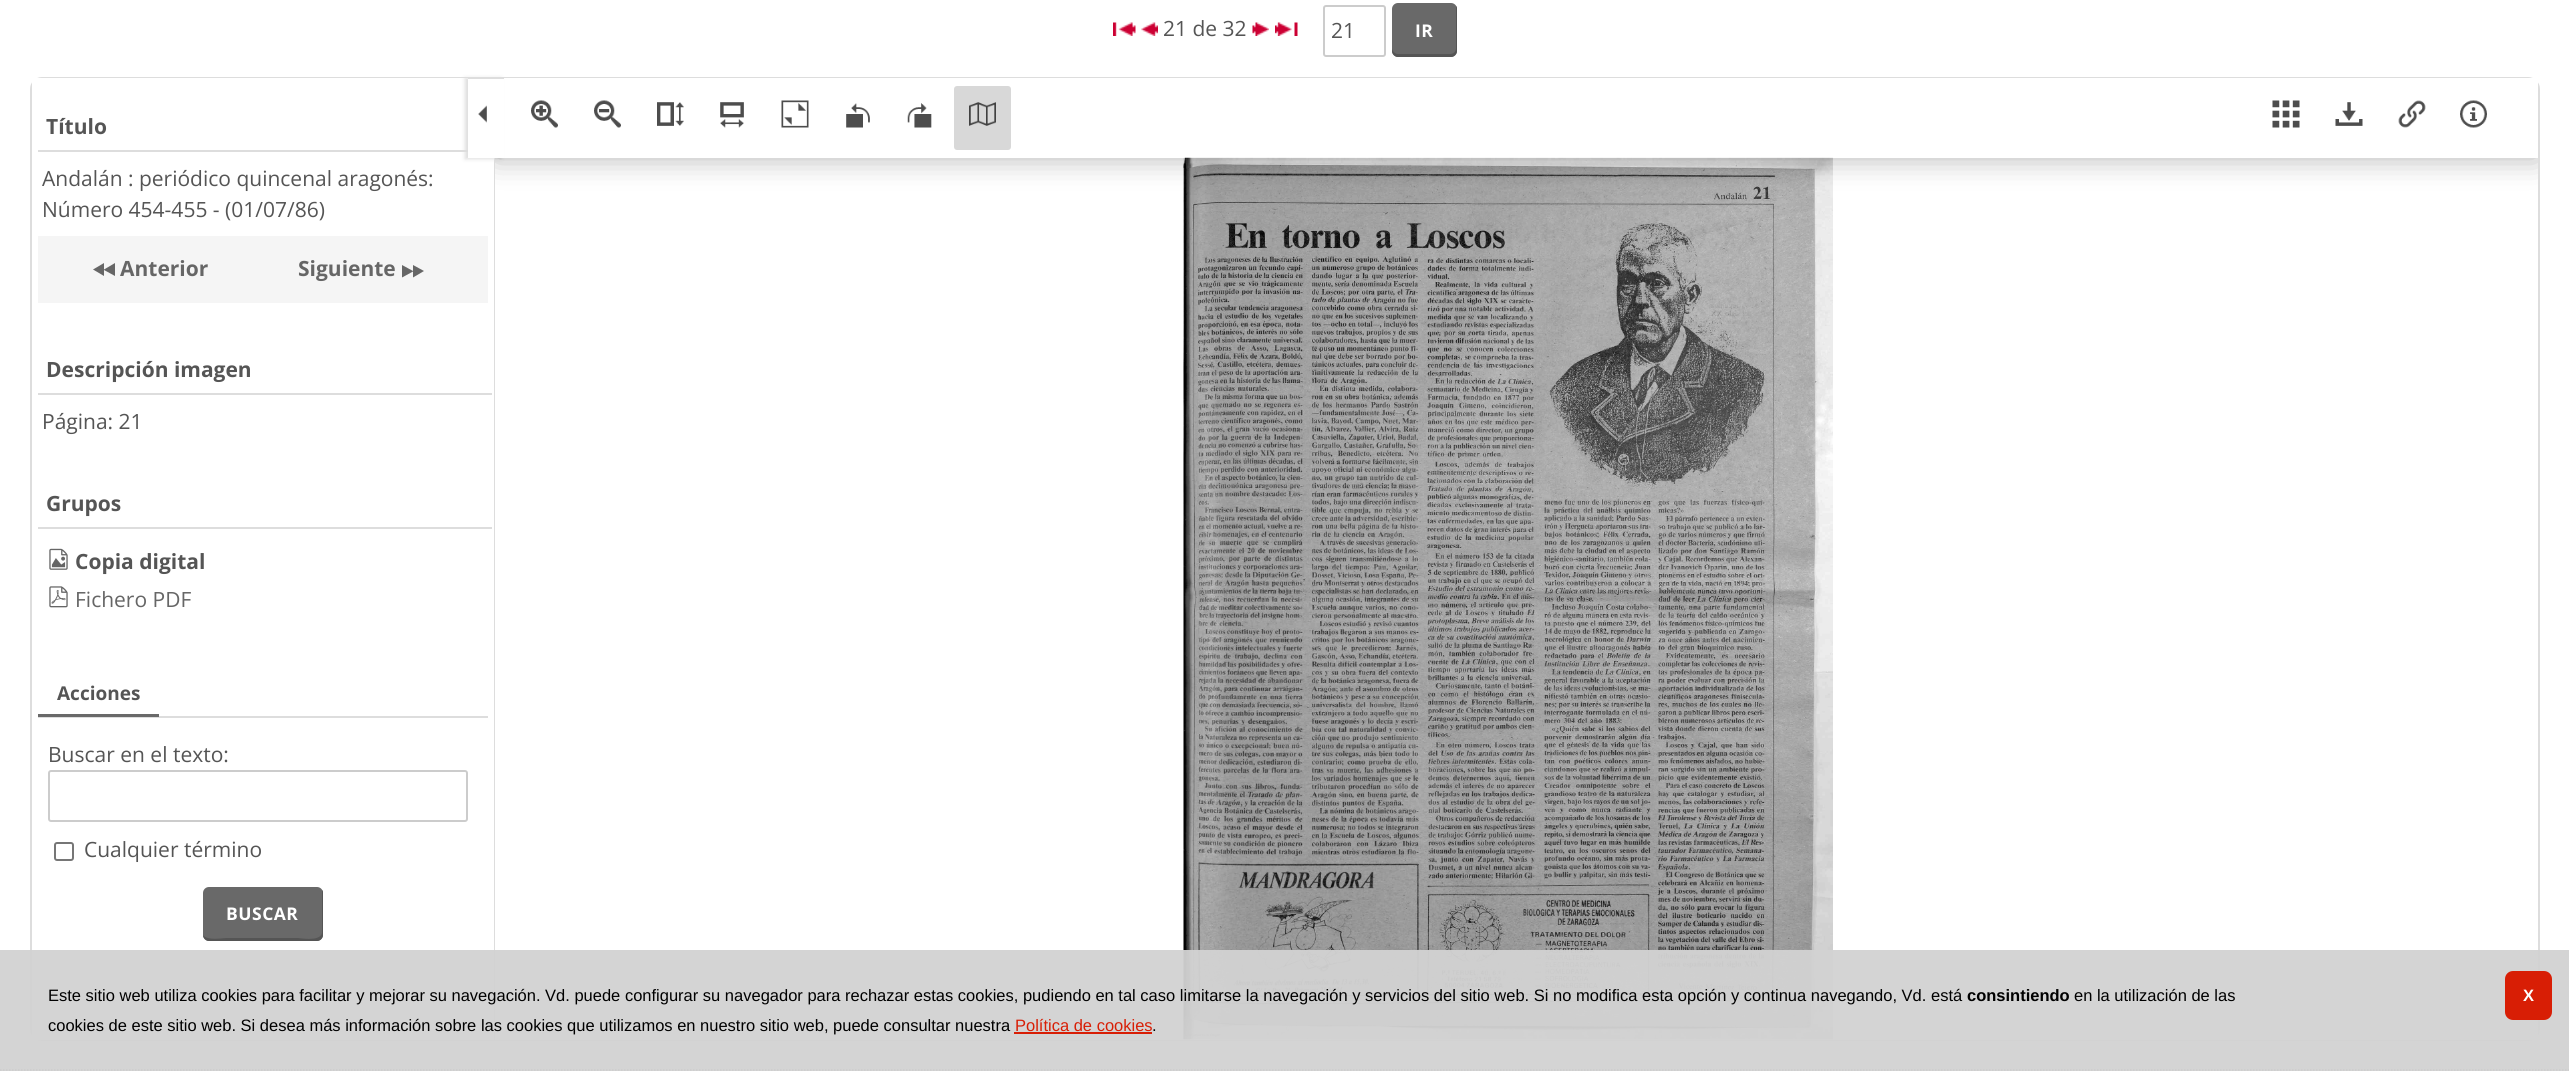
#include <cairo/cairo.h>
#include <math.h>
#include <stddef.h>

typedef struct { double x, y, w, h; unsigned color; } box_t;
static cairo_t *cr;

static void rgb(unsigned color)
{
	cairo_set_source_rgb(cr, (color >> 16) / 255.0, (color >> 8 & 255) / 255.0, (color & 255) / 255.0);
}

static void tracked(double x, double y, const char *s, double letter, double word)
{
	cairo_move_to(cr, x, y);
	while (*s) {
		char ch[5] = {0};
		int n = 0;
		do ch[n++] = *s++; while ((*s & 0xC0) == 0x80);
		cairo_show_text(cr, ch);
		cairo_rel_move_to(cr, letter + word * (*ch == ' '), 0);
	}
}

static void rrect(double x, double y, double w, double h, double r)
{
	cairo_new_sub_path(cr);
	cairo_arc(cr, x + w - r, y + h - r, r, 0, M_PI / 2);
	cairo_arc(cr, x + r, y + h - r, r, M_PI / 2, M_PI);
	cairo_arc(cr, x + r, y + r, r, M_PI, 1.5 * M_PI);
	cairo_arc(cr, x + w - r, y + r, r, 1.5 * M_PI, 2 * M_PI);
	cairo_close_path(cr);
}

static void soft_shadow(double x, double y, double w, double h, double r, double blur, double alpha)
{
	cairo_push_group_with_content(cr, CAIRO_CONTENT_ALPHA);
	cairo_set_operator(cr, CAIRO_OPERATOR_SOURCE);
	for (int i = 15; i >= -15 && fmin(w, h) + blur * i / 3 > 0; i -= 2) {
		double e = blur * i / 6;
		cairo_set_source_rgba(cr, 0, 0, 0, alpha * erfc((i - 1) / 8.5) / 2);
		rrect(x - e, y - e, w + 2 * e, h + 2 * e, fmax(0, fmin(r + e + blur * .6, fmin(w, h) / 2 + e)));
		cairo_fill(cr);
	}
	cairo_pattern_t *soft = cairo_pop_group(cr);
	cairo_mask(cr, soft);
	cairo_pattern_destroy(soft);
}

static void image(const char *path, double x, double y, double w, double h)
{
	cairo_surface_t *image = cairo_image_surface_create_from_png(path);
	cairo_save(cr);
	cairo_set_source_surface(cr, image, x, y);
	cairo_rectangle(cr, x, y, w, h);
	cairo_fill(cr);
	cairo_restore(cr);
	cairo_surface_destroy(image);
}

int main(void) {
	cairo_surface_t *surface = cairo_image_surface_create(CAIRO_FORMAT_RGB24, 2569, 1071);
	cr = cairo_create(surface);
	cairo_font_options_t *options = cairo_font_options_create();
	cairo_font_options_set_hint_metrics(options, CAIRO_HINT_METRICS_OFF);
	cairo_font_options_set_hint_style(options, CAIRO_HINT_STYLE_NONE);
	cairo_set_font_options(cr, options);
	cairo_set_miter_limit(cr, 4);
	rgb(0xffffff);
	cairo_paint(cr);
	image("img/1.png", 1113, 22, 23, 14);
	image("img/2.png", 1141, 22, 17, 14);
	image("img/3.png", 1252, 22, 17, 14);
	image("img/4.png", 1275, 22, 23, 14);
	rrect(1324, 6, 61, 50, 2);
	rgb(0xcccccc);
	cairo_stroke(cr);
	rgb(0x696969);
	rrect(1392, 3, 65, 54, 6);
	cairo_fill(cr);
	rgb(0x555555);
	cairo_new_path(cr);
	cairo_move_to(cr, 1392, 48);
	cairo_line_to(cr, 1392, 51);
	cairo_curve_to(cr, 1392, 54, 1395, 57, 1398, 57);
	cairo_line_to(cr, 1451, 57);
	cairo_curve_to(cr, 1454, 57, 1457, 54, 1457, 51);
	cairo_line_to(cr, 1457, 9);
	cairo_curve_to(cr, 1457, 8, 1457, 7, 1456, 6);
	cairo_line_to(cr, 1456, 48);
	cairo_curve_to(cr, 1456, 51, 1454, 54, 1450, 54);
	cairo_line_to(cr, 1398, 54);
	cairo_curve_to(cr, 1395, 54, 1392, 51, 1392, 48);
	cairo_close_path(cr);
	cairo_fill(cr);
	rrect(31, 78, 2508, 962, 11);
	rgb(0xdddddd);
	cairo_stroke(cr);
	{
		static const box_t items[] = {
			{32, 78, 462, 962, 0xffffff},
			{494, 158, 1, 882, 0xdddddd},
			{38, 150, 430, 2, 0xdddddd},
			{38, 236, 450, 67, 0xf5f5f5},
		};
		for (size_t i = 0; i < sizeof items / sizeof *items; i++) {
			rgb(items[i].color);
			cairo_rectangle(cr, items[i].x, items[i].y, items[i].w, items[i].h);
			cairo_fill(cr);
		}
	}
	rgb(0x666666);
	cairo_new_path(cr);
	cairo_move_to(cr, 104, 263);
	cairo_line_to(cr, 104, 269.5);
	cairo_line_to(cr, 115, 263);
	cairo_line_to(cr, 115, 276);
	cairo_line_to(cr, 104, 270);
	cairo_line_to(cr, 104, 276);
	cairo_line_to(cr, 93, 269.5);
	cairo_close_path(cr);
	cairo_fill(cr);
	cairo_new_path(cr);
	cairo_move_to(cr, 413, 265);
	cairo_line_to(cr, 424, 271);
	cairo_line_to(cr, 413, 277.5);
	cairo_line_to(cr, 413, 271.5);
	cairo_line_to(cr, 402, 277.5);
	cairo_line_to(cr, 402, 265);
	cairo_line_to(cr, 413, 271);
	cairo_close_path(cr);
	cairo_fill(cr);
	rgb(0xdddddd);
	cairo_rectangle(cr, 38, 393, 454, 2);
	cairo_fill(cr);
	cairo_rectangle(cr, 38, 527, 454, 2);
	cairo_fill(cr);
	image("img/5.png", 49, 548, 19, 22);
	image("img/6.png", 49, 586, 19, 22);
	cairo_rectangle(cr, 38, 716, 450, 2);
	cairo_fill(cr);
	rgb(0x696969);
	cairo_rectangle(cr, 38, 714, 121, 3);
	cairo_fill(cr);
	rrect(49, 771, 418, 50, 2);
	rgb(0xcccccc);
	cairo_stroke(cr);
	rrect(55, 843, 18, 17, 2);
	rgb(0x767676);
	cairo_stroke(cr);
	rgb(0x696969);
	rrect(203, 887, 120, 54, 6);
	cairo_fill(cr);
	rgb(0x555555);
	cairo_new_path(cr);
	cairo_move_to(cr, 203, 935);
	cairo_curve_to(cr, 203, 938, 206, 941, 209, 941);
	cairo_line_to(cr, 317, 941);
	cairo_curve_to(cr, 320, 941, 323, 938, 323, 935);
	cairo_line_to(cr, 323, 893);
	cairo_curve_to(cr, 323, 892, 323, 891, 322, 890);
	cairo_line_to(cr, 322, 933);
	cairo_curve_to(cr, 320, 942, 300, 938, 298, 938);
	cairo_line_to(cr, 226, 938);
	cairo_curve_to(cr, 223, 938, 207, 941, 203, 935);
	cairo_close_path(cr);
	cairo_fill(cr);
	rgb(0xffffff);
	cairo_rectangle(cr, 495, 1039, 2, 1);
	cairo_fill(cr);
	cairo_rectangle(cr, 497, 78, 2041, 962);
	cairo_fill(cr);
	rgb(0xdddddd);
	soft_shadow(465, 78, 36, 81, 0, 2, 1);
	rgb(0xffffff);
	cairo_rectangle(cr, 468, 79, 36, 79);
	cairo_fill(cr);
	rgb(0xdddddd);
	cairo_rectangle(cr, 468, 78, 36, 1);
	cairo_fill(cr);
	image("img/7.png", 478, 105, 9, 18);
	image("img/20.png", 1183, 157, 650, 883);
	cairo_save(cr);
	cairo_rectangle(cr, 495, 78, 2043, 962);
	cairo_clip(cr);
	cairo_set_fill_rule(cr, CAIRO_FILL_RULE_EVEN_ODD);
	cairo_new_path(cr);
	cairo_move_to(cr, 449, 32);
	cairo_line_to(cr, 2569, 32);
	cairo_line_to(cr, 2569, 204);
	cairo_line_to(cr, 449, 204);
	cairo_close_path(cr);
	cairo_move_to(cr, 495, 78);
	cairo_line_to(cr, 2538, 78);
	cairo_line_to(cr, 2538, 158);
	cairo_line_to(cr, 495, 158);
	cairo_close_path(cr);
	cairo_clip(cr);
	rgb(0x000000);
	soft_shadow(495, 78, 2043, 80, 0, 15, 0.3);
	cairo_restore(cr);
	image("img/8.png", 531, 100, 27, 28);
	image("img/9.png", 594, 100, 27, 28);
	image("img/10.png", 657, 102, 27, 24);
	image("img/11.png", 720, 102, 24, 26);
	image("img/12.png", 781, 100, 28, 28);
	image("img/13.png", 846, 103, 24, 25);
	image("img/14.png", 907, 103, 25, 25);
	rgb(0xd8d8d8);
	rrect(954, 86, 57, 64, 3);
	cairo_fill(cr);
	image("img/15.png", 969, 102, 27, 24);
	image("img/16.png", 2272, 100, 28, 28);
	image("img/17.png", 2335, 102, 28, 24);
	image("img/18.png", 2398, 100, 28, 28);
	image("img/19.png", 2460, 100, 27, 28);
	cairo_set_source_rgba(cr, 0.824, 0.824, 0.824, 0.95);
	cairo_rectangle(cr, 0, 950, 2569, 121);
	cairo_fill(cr);
	cairo_new_path(cr);
	cairo_move_to(cr, 0, 1070);
	cairo_line_to(cr, 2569.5, 1070);
	rgb(0xcccccc);
	cairo_set_line_width(cr, 1.5);
	cairo_set_dash(cr, (double[]){1.5, 1.5}, 2, 0);
	cairo_stroke(cr);
	rgb(0xd81e05);
	cairo_rectangle(cr, 1014, 1032, 138, 2);
	cairo_fill(cr);
	rrect(2505, 971, 47, 49, 8);
	cairo_fill(cr);
	cairo_select_font_face(cr, "Open Sans", CAIRO_FONT_SLANT_NORMAL, CAIRO_FONT_WEIGHT_NORMAL);
	cairo_set_font_size(cr, 21);
	rgb(0x555555);
	cairo_move_to(cr, 1163, 36);
	cairo_show_text(cr, "21 de 32");
	cairo_move_to(cr, 1331, 38);
	cairo_show_text(cr, "21");
	cairo_select_font_face(cr, "Open Sans", CAIRO_FONT_SLANT_NORMAL, CAIRO_FONT_WEIGHT_BOLD);
	cairo_set_font_size(cr, 17.5);
	rgb(0xffffff);
	tracked(1415, 37, "IR", 0.5, 0);
	cairo_set_font_size(cr, 21);
	rgb(0x555555);
	cairo_move_to(cr, 46, 134);
	cairo_show_text(cr, "Título");
	cairo_select_font_face(cr, "Open Sans", CAIRO_FONT_SLANT_NORMAL, CAIRO_FONT_WEIGHT_NORMAL);
	cairo_move_to(cr, 42, 186);
	cairo_show_text(cr, "Andalán : periódico quincenal aragonés:");
	cairo_move_to(cr, 42, 217);
	cairo_show_text(cr, "Número 454-455 - (01/07/86)");
	cairo_select_font_face(cr, "Open Sans", CAIRO_FONT_SLANT_NORMAL, CAIRO_FONT_WEIGHT_BOLD);
	rgb(0x666666);
	cairo_move_to(cr, 120, 276);
	cairo_show_text(cr, "Anterior");
	cairo_move_to(cr, 298, 276);
	cairo_show_text(cr, "Siguiente");
	rgb(0x555555);
	cairo_move_to(cr, 46, 377);
	cairo_show_text(cr, "Descripción imagen");
	cairo_select_font_face(cr, "Open Sans", CAIRO_FONT_SLANT_NORMAL, CAIRO_FONT_WEIGHT_NORMAL);
	cairo_move_to(cr, 42, 429);
	cairo_show_text(cr, "Página: 21");
	cairo_select_font_face(cr, "Open Sans", CAIRO_FONT_SLANT_NORMAL, CAIRO_FONT_WEIGHT_BOLD);
	cairo_move_to(cr, 46, 511);
	cairo_show_text(cr, "Grupos");
	cairo_move_to(cr, 75, 569);
	cairo_show_text(cr, "Copia digital");
	cairo_select_font_face(cr, "Open Sans", CAIRO_FONT_SLANT_NORMAL, CAIRO_FONT_WEIGHT_NORMAL);
	rgb(0x666666);
	cairo_move_to(cr, 75, 607);
	cairo_show_text(cr, "Fichero PDF");
	cairo_select_font_face(cr, "Open Sans", CAIRO_FONT_SLANT_NORMAL, CAIRO_FONT_WEIGHT_BOLD);
	cairo_set_font_size(cr, 19);
	rgb(0x555555);
	cairo_move_to(cr, 57, 700);
	cairo_show_text(cr, "Acciones");
	cairo_select_font_face(cr, "Open Sans", CAIRO_FONT_SLANT_NORMAL, CAIRO_FONT_WEIGHT_NORMAL);
	cairo_set_font_size(cr, 21);
	cairo_move_to(cr, 48, 762);
	cairo_show_text(cr, "Buscar en el texto:");
	cairo_move_to(cr, 84, 857);
	cairo_show_text(cr, "Cualquier término");
	cairo_select_font_face(cr, "Open Sans", CAIRO_FONT_SLANT_NORMAL, CAIRO_FONT_WEIGHT_BOLD);
	cairo_set_font_size(cr, 17.5);
	rgb(0xffffff);
	tracked(226, 920, "BUSCAR", 0.5, 0);
	cairo_select_font_face(cr, "Liberation Sans", CAIRO_FONT_SLANT_NORMAL, CAIRO_FONT_WEIGHT_NORMAL);
	cairo_set_font_size(cr, 16.5);
	rgb(0x000000);
	cairo_move_to(cr, 48, 1001);
	cairo_show_text(cr, "Este sitio web utiliza cookies para facilitar y mejorar su navegación. Vd. puede configurar su navegador para rechazar estas cookies, pudiendo en tal caso limitarse la navegación y servicios del sitio web. Si no modifica esta opción y continua navegando, Vd. está");
	cairo_select_font_face(cr, "Liberation Sans", CAIRO_FONT_SLANT_NORMAL, CAIRO_FONT_WEIGHT_BOLD);
	cairo_move_to(cr, 1967, 1001);
	cairo_show_text(cr, "consintiendo");
	cairo_select_font_face(cr, "Liberation Sans", CAIRO_FONT_SLANT_NORMAL, CAIRO_FONT_WEIGHT_NORMAL);
	cairo_move_to(cr, 2074, 1001);
	cairo_show_text(cr, "en la utilización de las");
	cairo_move_to(cr, 48, 1031);
	cairo_show_text(cr, "cookies de este sitio web. Si desea más información sobre las cookies que utilizamos en nuestro sitio web, puede consultar nuestra");
	rgb(0xd81e05);
	cairo_move_to(cr, 1015, 1031);
	cairo_show_text(cr, "Política de cookies");
	rgb(0x000000);
	cairo_move_to(cr, 1152, 1031);
	cairo_show_text(cr, ".");
	cairo_select_font_face(cr, "Liberation Sans", CAIRO_FONT_SLANT_NORMAL, CAIRO_FONT_WEIGHT_BOLD);
	rgb(0xffffff);
	tracked(2523, 1001, "X", -1, 0);
	cairo_surface_write_to_png(surface, "page.png");
	cairo_font_options_destroy(options);
	cairo_destroy(cr);
	cairo_surface_destroy(surface);
	return 0;
}
